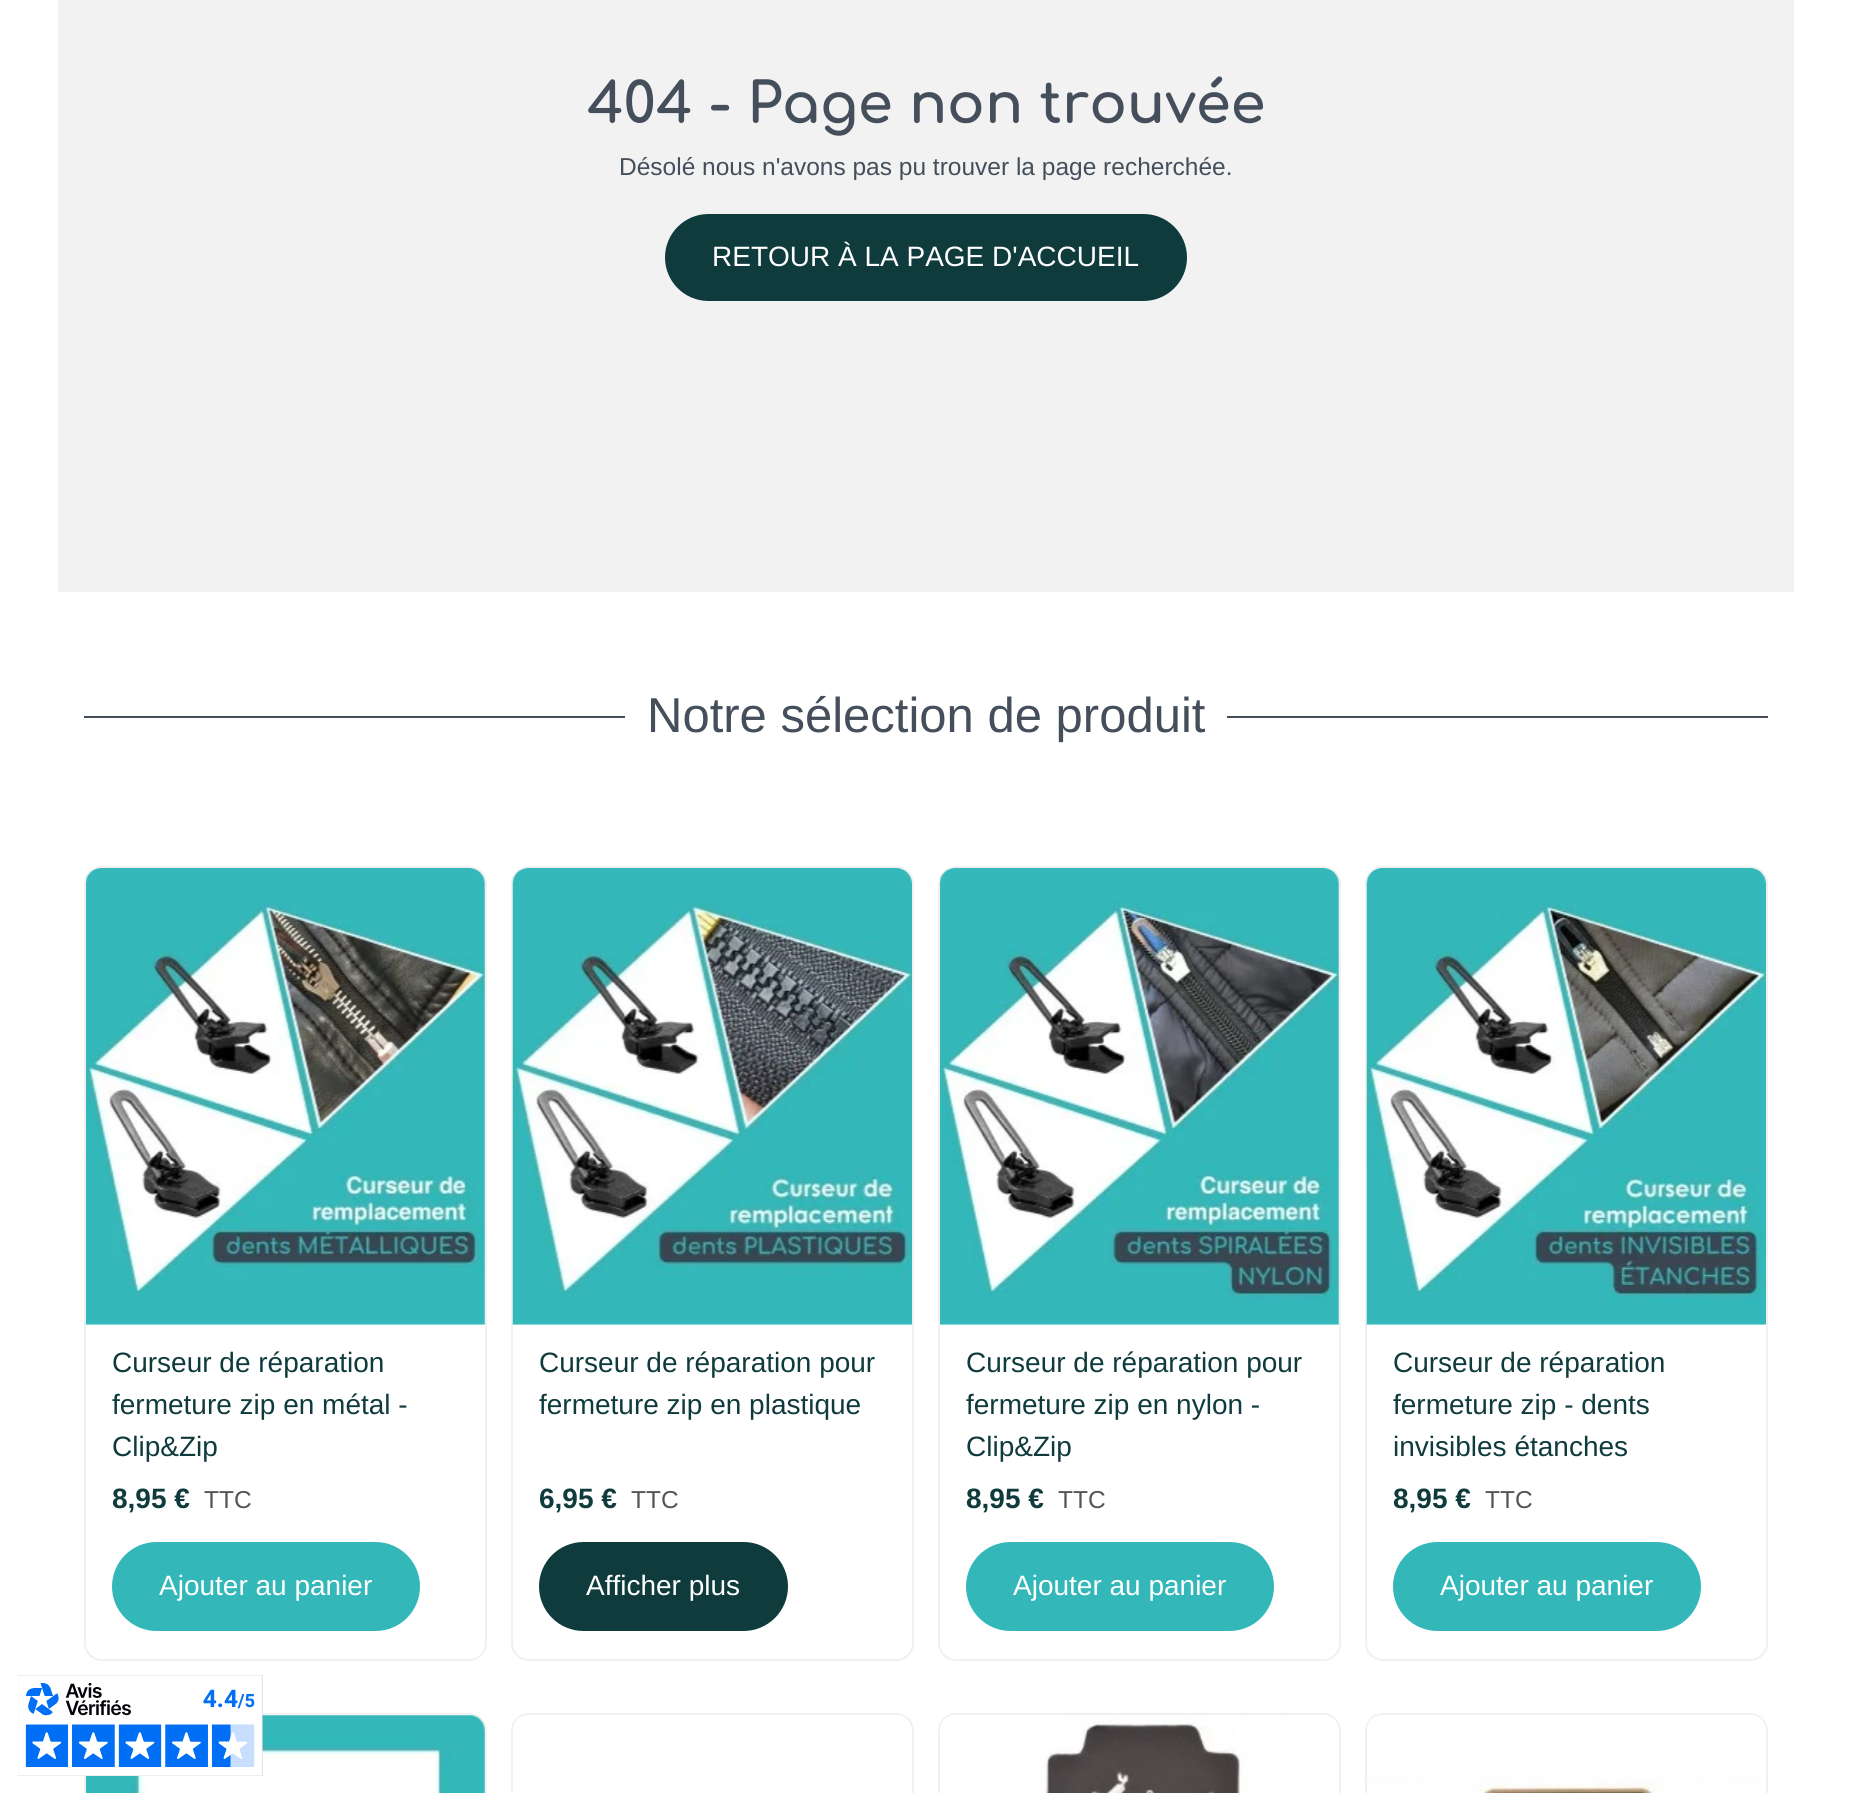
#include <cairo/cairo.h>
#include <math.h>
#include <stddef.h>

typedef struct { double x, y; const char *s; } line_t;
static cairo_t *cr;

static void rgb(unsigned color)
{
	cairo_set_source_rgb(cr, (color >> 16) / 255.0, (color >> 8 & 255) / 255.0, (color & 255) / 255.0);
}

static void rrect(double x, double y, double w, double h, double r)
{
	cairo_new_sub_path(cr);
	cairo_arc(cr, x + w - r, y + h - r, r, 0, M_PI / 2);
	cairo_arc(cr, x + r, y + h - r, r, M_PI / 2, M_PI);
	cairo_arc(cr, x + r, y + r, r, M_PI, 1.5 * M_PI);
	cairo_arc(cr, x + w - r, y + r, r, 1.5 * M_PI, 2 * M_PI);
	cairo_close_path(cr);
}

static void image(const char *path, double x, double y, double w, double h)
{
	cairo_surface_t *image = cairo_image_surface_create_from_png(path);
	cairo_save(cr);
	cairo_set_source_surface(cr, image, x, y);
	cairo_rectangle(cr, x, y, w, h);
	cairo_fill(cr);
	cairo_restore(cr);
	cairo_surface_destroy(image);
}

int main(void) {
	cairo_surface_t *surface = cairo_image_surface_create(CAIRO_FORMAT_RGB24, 1851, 1793);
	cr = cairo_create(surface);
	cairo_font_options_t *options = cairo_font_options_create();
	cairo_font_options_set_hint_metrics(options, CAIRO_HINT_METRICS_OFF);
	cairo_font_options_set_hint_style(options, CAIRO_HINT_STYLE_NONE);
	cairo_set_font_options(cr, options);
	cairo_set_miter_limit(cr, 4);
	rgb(0xffffff);
	cairo_paint(cr);
	rgb(0xf2f2f2);
	cairo_rectangle(cr, 58, 0, 1736, 592);
	cairo_fill(cr);
	rgb(0x103b3c);
	rrect(667, 216, 518, 83, 41.5);
	cairo_fill_preserve(cr);
	cairo_set_line_width(cr, 4);
	cairo_stroke(cr);
	rgb(0x454f5b);
	cairo_rectangle(cr, 84, 716, 541, 2);
	cairo_fill(cr);
	cairo_rectangle(cr, 1227, 716, 541, 2);
	cairo_fill(cr);
	rrect(85, 867, 401, 793, 17);
	rgb(0xf0f0f0);
	cairo_set_line_width(cr, 2);
	cairo_stroke(cr);
	image("img/1.png", 86, 868, 399, 457);
	rgb(0x33b7b9);
	rrect(114, 1544, 304, 85, 42.5);
	cairo_fill_preserve(cr);
	cairo_set_line_width(cr, 4);
	cairo_stroke(cr);
	rrect(512, 867, 401, 793, 17);
	rgb(0xf0f0f0);
	cairo_set_line_width(cr, 2);
	cairo_stroke(cr);
	image("img/2.png", 512, 868, 400, 457);
	rgb(0x103b3c);
	rrect(541, 1544, 245, 85, 42.5);
	cairo_fill_preserve(cr);
	cairo_set_line_width(cr, 4);
	cairo_stroke(cr);
	rrect(939, 867, 401, 793, 17);
	rgb(0xf0f0f0);
	cairo_set_line_width(cr, 2);
	cairo_stroke(cr);
	image("img/3.png", 940, 868, 399, 457);
	rgb(0x33b7b9);
	rrect(968, 1544, 304, 85, 42.5);
	cairo_fill_preserve(cr);
	cairo_set_line_width(cr, 4);
	cairo_stroke(cr);
	rrect(1366, 867, 401, 793, 17);
	rgb(0xf0f0f0);
	cairo_set_line_width(cr, 2);
	cairo_stroke(cr);
	image("img/4.png", 1366, 868, 400, 457);
	rgb(0x33b7b9);
	rrect(1395, 1544, 304, 85, 42.5);
	cairo_fill_preserve(cr);
	cairo_set_line_width(cr, 4);
	cairo_stroke(cr);
	rrect(85, 1714, 401, 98, 17);
	rgb(0xf0f0f0);
	cairo_set_line_width(cr, 2);
	cairo_stroke(cr);
	image("img/5.png", 86, 1715, 399, 78);
	rrect(512, 1714, 401, 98, 17);
	cairo_stroke(cr);
	image("img/6.png", 513, 1715, 397, 13);
	rrect(939, 1714, 401, 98, 17);
	cairo_stroke(cr);
	image("img/7.png", 940, 1715, 397, 78);
	rrect(1366, 1714, 401, 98, 17);
	cairo_stroke(cr);
	image("img/8.png", 1367, 1715, 397, 78);
	image("img/9.png", 18, 1675, 245, 101);
	cairo_select_font_face(cr, "Comfortaa", CAIRO_FONT_SLANT_NORMAL, CAIRO_FONT_WEIGHT_BOLD);
	cairo_set_font_size(cr, 56);
	rgb(0x454f5b);
	cairo_move_to(cr, 587, 123);
	cairo_show_text(cr, "404 - Page non trouvée");
	cairo_select_font_face(cr, "Liberation Sans", CAIRO_FONT_SLANT_NORMAL, CAIRO_FONT_WEIGHT_NORMAL);
	cairo_set_font_size(cr, 24.5);
	cairo_move_to(cr, 619, 175);
	cairo_show_text(cr, "Désolé nous n'avons pas pu trouver la page recherchée.");
	cairo_set_font_size(cr, 28);
	rgb(0xffffff);
	cairo_move_to(cr, 712, 266);
	cairo_show_text(cr, "RETOUR À LA PAGE D'ACCUEIL");
	cairo_set_font_size(cr, 49);
	rgb(0x454f5b);
	cairo_move_to(cr, 647, 732);
	cairo_show_text(cr, "Notre sélection de produit");
	cairo_set_font_size(cr, 28);
	rgb(0x103b3c);
	{
		static const line_t items[] = {
			{112, 1372, "Curseur de réparation"},
			{112, 1414, "fermeture zip en métal -"},
			{112, 1456, "Clip&Zip"},
		};
		for (size_t i = 0; i < sizeof items / sizeof *items; i++) {
			cairo_move_to(cr, items[i].x, items[i].y);
			cairo_show_text(cr, items[i].s);
		}
	}
	cairo_select_font_face(cr, "Liberation Sans", CAIRO_FONT_SLANT_NORMAL, CAIRO_FONT_WEIGHT_BOLD);
	cairo_move_to(cr, 112, 1508);
	cairo_show_text(cr, "8,95 €");
	cairo_select_font_face(cr, "Liberation Sans", CAIRO_FONT_SLANT_NORMAL, CAIRO_FONT_WEIGHT_NORMAL);
	cairo_set_font_size(cr, 24.5);
	rgb(0x545454);
	cairo_move_to(cr, 204, 1508);
	cairo_show_text(cr, "TTC");
	cairo_set_font_size(cr, 28);
	rgb(0xffffff);
	cairo_move_to(cr, 159, 1595);
	cairo_show_text(cr, "Ajouter au panier");
	rgb(0x103b3c);
	cairo_move_to(cr, 539, 1372);
	cairo_show_text(cr, "Curseur de réparation pour");
	cairo_move_to(cr, 539, 1414);
	cairo_show_text(cr, "fermeture zip en plastique");
	cairo_select_font_face(cr, "Liberation Sans", CAIRO_FONT_SLANT_NORMAL, CAIRO_FONT_WEIGHT_BOLD);
	cairo_move_to(cr, 539, 1508);
	cairo_show_text(cr, "6,95 €");
	cairo_select_font_face(cr, "Liberation Sans", CAIRO_FONT_SLANT_NORMAL, CAIRO_FONT_WEIGHT_NORMAL);
	cairo_set_font_size(cr, 24.5);
	rgb(0x545454);
	cairo_move_to(cr, 631, 1508);
	cairo_show_text(cr, "TTC");
	cairo_set_font_size(cr, 28);
	rgb(0xffffff);
	cairo_move_to(cr, 586, 1595);
	cairo_show_text(cr, "Afficher plus");
	rgb(0x103b3c);
	{
		static const line_t items[] = {
			{966, 1372, "Curseur de réparation pour"},
			{966, 1414, "fermeture zip en nylon -"},
			{966, 1456, "Clip&Zip"},
		};
		for (size_t i = 0; i < sizeof items / sizeof *items; i++) {
			cairo_move_to(cr, items[i].x, items[i].y);
			cairo_show_text(cr, items[i].s);
		}
	}
	cairo_select_font_face(cr, "Liberation Sans", CAIRO_FONT_SLANT_NORMAL, CAIRO_FONT_WEIGHT_BOLD);
	cairo_move_to(cr, 966, 1508);
	cairo_show_text(cr, "8,95 €");
	cairo_select_font_face(cr, "Liberation Sans", CAIRO_FONT_SLANT_NORMAL, CAIRO_FONT_WEIGHT_NORMAL);
	cairo_set_font_size(cr, 24.5);
	rgb(0x545454);
	cairo_move_to(cr, 1058, 1508);
	cairo_show_text(cr, "TTC");
	cairo_set_font_size(cr, 28);
	rgb(0xffffff);
	cairo_move_to(cr, 1013, 1595);
	cairo_show_text(cr, "Ajouter au panier");
	rgb(0x103b3c);
	{
		static const line_t items[] = {
			{1393, 1372, "Curseur de réparation"},
			{1393, 1414, "fermeture zip - dents"},
			{1393, 1456, "invisibles étanches"},
		};
		for (size_t i = 0; i < sizeof items / sizeof *items; i++) {
			cairo_move_to(cr, items[i].x, items[i].y);
			cairo_show_text(cr, items[i].s);
		}
	}
	cairo_select_font_face(cr, "Liberation Sans", CAIRO_FONT_SLANT_NORMAL, CAIRO_FONT_WEIGHT_BOLD);
	cairo_move_to(cr, 1393, 1508);
	cairo_show_text(cr, "8,95 €");
	cairo_select_font_face(cr, "Liberation Sans", CAIRO_FONT_SLANT_NORMAL, CAIRO_FONT_WEIGHT_NORMAL);
	cairo_set_font_size(cr, 24.5);
	rgb(0x545454);
	cairo_move_to(cr, 1485, 1508);
	cairo_show_text(cr, "TTC");
	cairo_set_font_size(cr, 28);
	rgb(0xffffff);
	cairo_move_to(cr, 1440, 1595);
	cairo_show_text(cr, "Ajouter au panier");
	cairo_surface_write_to_png(surface, "page.png");
	cairo_font_options_destroy(options);
	cairo_destroy(cr);
	cairo_surface_destroy(surface);
	return 0;
}
